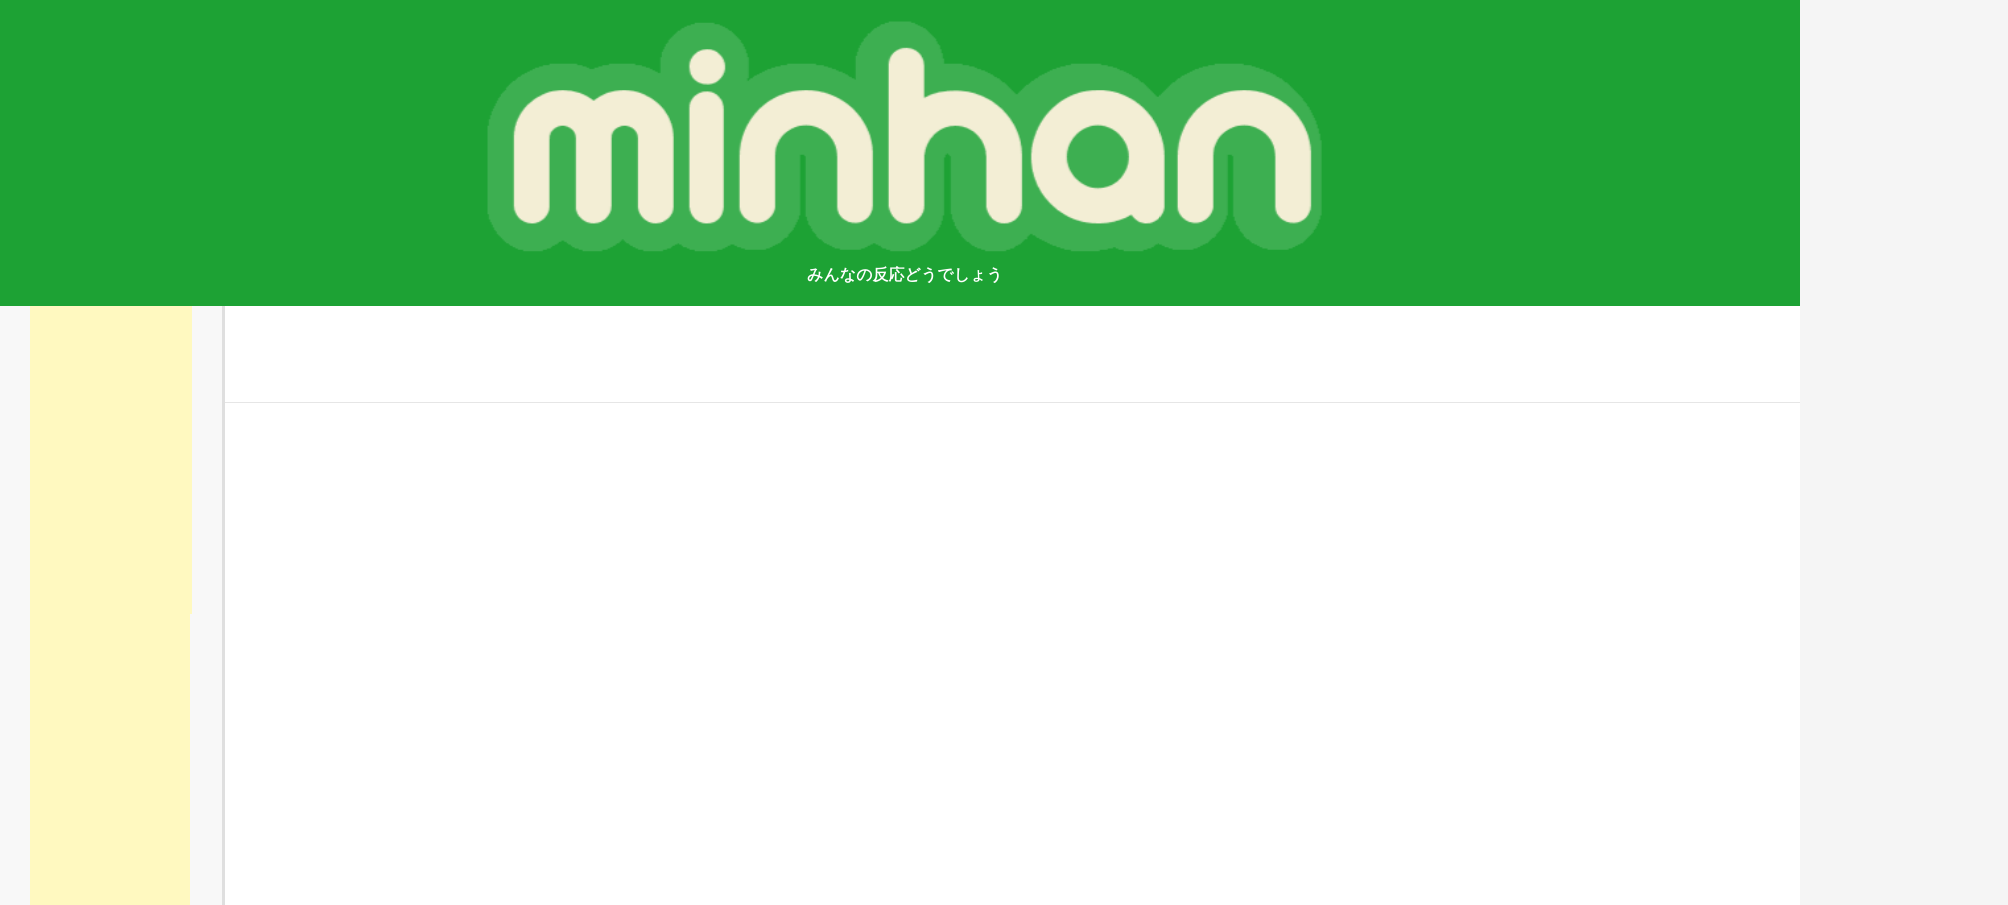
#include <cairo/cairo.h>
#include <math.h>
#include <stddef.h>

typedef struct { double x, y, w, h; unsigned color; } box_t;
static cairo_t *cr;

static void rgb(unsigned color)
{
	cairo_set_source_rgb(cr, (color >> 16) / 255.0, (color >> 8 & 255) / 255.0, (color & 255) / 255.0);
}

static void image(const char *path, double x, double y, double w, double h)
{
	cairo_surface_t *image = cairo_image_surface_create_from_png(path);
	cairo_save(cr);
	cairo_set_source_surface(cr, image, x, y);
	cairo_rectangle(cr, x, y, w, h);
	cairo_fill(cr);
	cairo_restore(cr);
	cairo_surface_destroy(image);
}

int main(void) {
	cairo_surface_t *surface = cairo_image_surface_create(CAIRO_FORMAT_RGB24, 2008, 905);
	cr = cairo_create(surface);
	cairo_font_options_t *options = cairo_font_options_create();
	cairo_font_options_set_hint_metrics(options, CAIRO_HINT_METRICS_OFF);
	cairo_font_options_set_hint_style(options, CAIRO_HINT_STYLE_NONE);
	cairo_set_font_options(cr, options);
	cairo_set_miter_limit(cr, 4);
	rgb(0xf5f5f5);
	cairo_paint(cr);
	rgb(0xffffff);
	cairo_rectangle(cr, 225, 306, 1575, 599);
	cairo_fill(cr);
	rgb(0x1da234);
	cairo_rectangle(cr, 0, 0, 1800, 306);
	cairo_fill(cr);
	image("img/1.png", 487, 21, 835, 231);
	{
		static const box_t items[] = {
			{0, 306, 222, 599, 0xf8f8f8},
			{222, 402, 1578, 1, 0xe6e6e6},
			{222, 306, 3, 599, 0xdfdfdf},
			{30, 306, 162, 308, 0xfff9c0},
			{30, 614, 160, 291, 0xfff9c0},
		};
		for (size_t i = 0; i < sizeof items / sizeof *items; i++) {
			rgb(items[i].color);
			cairo_rectangle(cr, items[i].x, items[i].y, items[i].w, items[i].h);
			cairo_fill(cr);
		}
	}
	cairo_select_font_face(cr, "WenQuanYi Zen Hei", CAIRO_FONT_SLANT_NORMAL, CAIRO_FONT_WEIGHT_BOLD);
	cairo_set_font_size(cr, 16);
	rgb(0xffffff);
	cairo_move_to(cr, 807, 280);
	cairo_show_text(cr, "みんなの反応どうでしょう");
	cairo_surface_write_to_png(surface, "page.png");
	cairo_font_options_destroy(options);
	cairo_destroy(cr);
	cairo_surface_destroy(surface);
	return 0;
}
